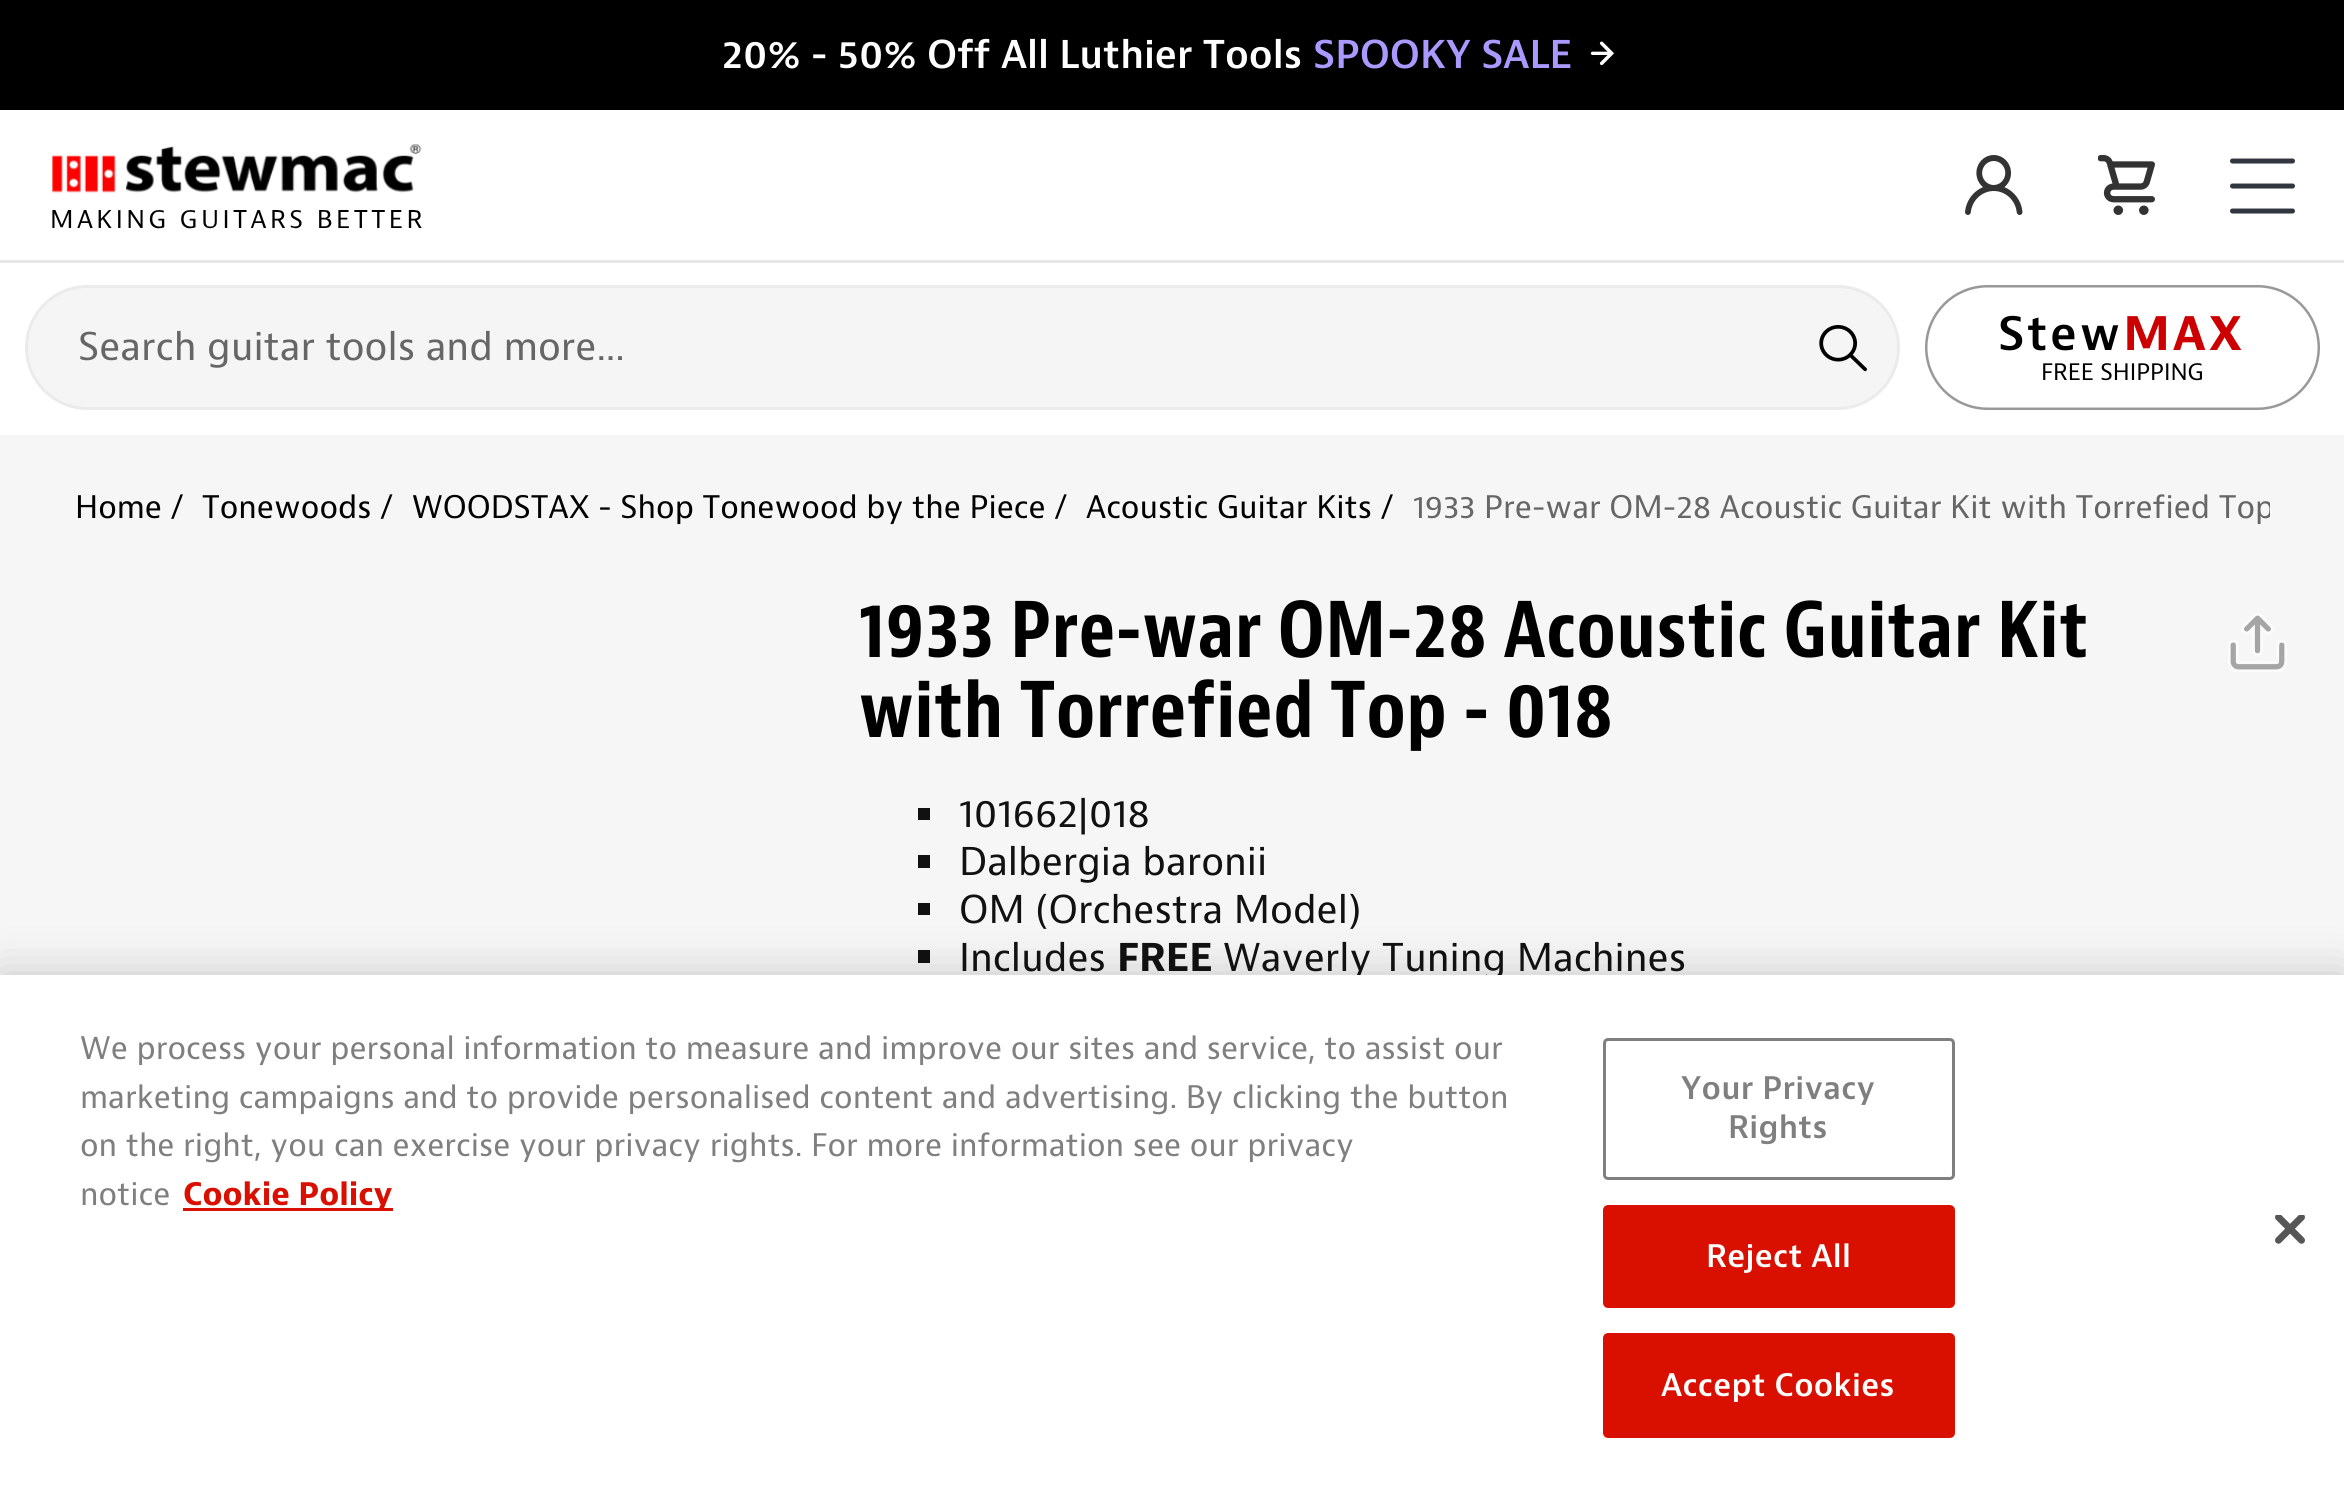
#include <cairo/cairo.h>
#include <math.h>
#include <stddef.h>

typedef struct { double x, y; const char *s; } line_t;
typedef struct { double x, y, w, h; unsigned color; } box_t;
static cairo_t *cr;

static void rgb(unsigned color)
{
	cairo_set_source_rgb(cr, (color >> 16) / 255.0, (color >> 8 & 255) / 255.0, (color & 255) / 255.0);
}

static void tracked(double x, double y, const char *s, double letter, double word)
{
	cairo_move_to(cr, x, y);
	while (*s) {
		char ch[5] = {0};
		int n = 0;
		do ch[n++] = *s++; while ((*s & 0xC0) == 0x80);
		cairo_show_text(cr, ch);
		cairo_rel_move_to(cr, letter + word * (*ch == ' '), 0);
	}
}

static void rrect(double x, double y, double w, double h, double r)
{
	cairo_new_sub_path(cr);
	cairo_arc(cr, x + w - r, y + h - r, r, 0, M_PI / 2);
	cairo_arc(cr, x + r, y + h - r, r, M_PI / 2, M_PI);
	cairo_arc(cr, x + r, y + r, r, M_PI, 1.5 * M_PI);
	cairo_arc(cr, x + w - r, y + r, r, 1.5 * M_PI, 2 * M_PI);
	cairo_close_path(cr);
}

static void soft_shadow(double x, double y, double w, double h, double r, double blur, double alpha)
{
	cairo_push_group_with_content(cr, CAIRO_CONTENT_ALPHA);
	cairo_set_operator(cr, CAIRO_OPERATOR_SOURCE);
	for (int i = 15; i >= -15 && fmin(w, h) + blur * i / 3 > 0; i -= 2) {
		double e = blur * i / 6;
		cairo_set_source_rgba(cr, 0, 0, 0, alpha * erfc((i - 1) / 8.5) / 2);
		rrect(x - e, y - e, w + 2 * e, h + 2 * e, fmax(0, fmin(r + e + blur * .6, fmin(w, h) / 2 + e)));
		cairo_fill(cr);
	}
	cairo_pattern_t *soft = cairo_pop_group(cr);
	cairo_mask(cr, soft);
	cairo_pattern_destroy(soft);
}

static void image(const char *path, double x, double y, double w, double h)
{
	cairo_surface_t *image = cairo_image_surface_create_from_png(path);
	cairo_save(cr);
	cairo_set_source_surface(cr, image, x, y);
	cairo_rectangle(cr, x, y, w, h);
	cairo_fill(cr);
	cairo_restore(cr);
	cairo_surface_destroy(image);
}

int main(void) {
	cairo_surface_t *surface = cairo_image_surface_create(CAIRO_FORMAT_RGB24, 2344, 1486);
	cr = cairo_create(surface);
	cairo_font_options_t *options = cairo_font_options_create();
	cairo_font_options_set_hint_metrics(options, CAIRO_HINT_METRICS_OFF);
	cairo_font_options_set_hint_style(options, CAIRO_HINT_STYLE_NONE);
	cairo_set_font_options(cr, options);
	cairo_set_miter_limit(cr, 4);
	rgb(0xf6f6f6);
	cairo_paint(cr);
	rgb(0xffffff);
	cairo_rectangle(cr, 0, 110, 2344, 325);
	cairo_fill(cr);
	rgb(0x000000);
	cairo_rectangle(cr, 0, 0, 2344, 110);
	cairo_fill(cr);
	image("img/1.png", 1590, 41, 24, 25);
	rgb(0xe6e6e6);
	cairo_rectangle(cr, 0, 260, 2344, 3);
	cairo_fill(cr);
	image("img/2.png", 52, 144, 370, 85);
	image("img/3.png", 1965, 155, 58, 60);
	image("img/4.png", 2098, 155, 57, 60);
	cairo_new_path(cr);
	cairo_move_to(cr, 2232.5, 161);
	cairo_line_to(cr, 2292.5, 161);
	rgb(0x313641);
	cairo_set_line_width(cr, 5);
	cairo_set_line_cap(cr, CAIRO_LINE_CAP_ROUND);
	cairo_stroke(cr);
	cairo_new_path(cr);
	cairo_move_to(cr, 2232.5, 186);
	cairo_line_to(cr, 2292.5, 186);
	cairo_stroke(cr);
	cairo_new_path(cr);
	cairo_move_to(cr, 2232.5, 211);
	cairo_line_to(cr, 2292.5, 211);
	cairo_stroke(cr);
	rgb(0xf5f5f5);
	rrect(26.5, 286.5, 1872, 122, 61);
	cairo_fill_preserve(cr);
	rgb(0xebebeb);
	cairo_set_line_width(cr, 3);
	cairo_set_line_cap(cr, CAIRO_LINE_CAP_BUTT);
	cairo_stroke(cr);
	image("img/5.png", 1819, 325, 48, 47);
	image("img/6.png", 1925, 285, 395, 125);
	image("img/7.png", 2228, 613, 59, 59);
	{
		static const box_t items[] = {
			{918, 808, 12, 12, 0x111111},
			{918, 855, 12, 13, 0x111111},
			{918, 903, 12, 12, 0x111111},
			{918, 950, 12, 13, 0x111111},
		};
		for (size_t i = 0; i < sizeof items / sizeof *items; i++) {
			rgb(items[i].color);
			cairo_rectangle(cr, items[i].x, items[i].y, items[i].w, items[i].h);
			cairo_fill(cr);
		}
	}
	rgb(0x000000);
	soft_shadow(0, 975, 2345, 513, 0, 22.5, 0.2);
	cairo_select_font_face(cr, "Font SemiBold", CAIRO_FONT_SLANT_NORMAL, CAIRO_FONT_WEIGHT_NORMAL);
	cairo_set_font_size(cr, 40);
	rgb(0xffffff);
	cairo_move_to(cr, 722, 68);
	cairo_show_text(cr, "20% - 50% Off All Luthier Tools");
	rgb(0xaa99ff);
	cairo_move_to(cr, 1313, 68);
	cairo_show_text(cr, "SPOOKY SALE");
	cairo_select_font_face(cr, "Font", CAIRO_FONT_SLANT_NORMAL, CAIRO_FONT_WEIGHT_NORMAL);
	rgb(0x666666);
	cairo_move_to(cr, 78, 360);
	cairo_show_text(cr, "Search guitar tools and more...");
	cairo_set_font_size(cr, 23.75);
	rgb(0x000000);
	cairo_move_to(cr, 2041, 380);
	cairo_show_text(cr, "FREE SHIPPING");
	cairo_set_font_size(cr, 32.5);
	{
		static const line_t items[] = {
			{75, 518, "Home /"},
			{202, 518, "Tonewoods /"},
			{412, 518, "WOODSTAX - Shop Tonewood by the Piece /"},
			{1086, 518, "Acoustic Guitar Kits /"},
		};
		for (size_t i = 0; i < sizeof items / sizeof *items; i++) {
			cairo_move_to(cr, items[i].x, items[i].y);
			cairo_show_text(cr, items[i].s);
		}
	}
	cairo_save(cr);
	cairo_rectangle(cr, 75, 455, 2195, 105);
	cairo_clip(cr);
	rgb(0x666666);
	cairo_move_to(cr, 1413, 518);
	cairo_show_text(cr, "1933 Pre-war OM-28 Acoustic Guitar Kit with Torrefied Top");
	cairo_restore(cr);
	cairo_select_font_face(cr, "Font", CAIRO_FONT_SLANT_NORMAL, CAIRO_FONT_WEIGHT_BOLD);
	cairo_set_font_size(cr, 80);
	tracked(859, 657, "1933 Pre-war OM-28 Acoustic Guitar Kit", 0.8, 0);
	tracked(859, 737, "with Torrefied Top - 018", 0.8, 0);
	cairo_select_font_face(cr, "Font", CAIRO_FONT_SLANT_NORMAL, CAIRO_FONT_WEIGHT_NORMAL);
	cairo_set_font_size(cr, 40);
	rgb(0x111111);
	{
		static const line_t items[] = {
			{959, 827, "101662|018"},
			{959, 875, "Dalbergia baronii"},
			{959, 923, "OM (Orchestra Model)"},
			{959, 971, "Includes"},
		};
		for (size_t i = 0; i < sizeof items / sizeof *items; i++) {
			cairo_move_to(cr, items[i].x, items[i].y);
			cairo_show_text(cr, items[i].s);
		}
	}
	cairo_select_font_face(cr, "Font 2", CAIRO_FONT_SLANT_NORMAL, CAIRO_FONT_WEIGHT_BOLD);
	cairo_move_to(cr, 1117, 971);
	cairo_show_text(cr, "FREE");
	cairo_select_font_face(cr, "Font", CAIRO_FONT_SLANT_NORMAL, CAIRO_FONT_WEIGHT_NORMAL);
	cairo_move_to(cr, 1223, 971);
	cairo_show_text(cr, "Waverly Tuning Machines");
	rgb(0xffffff);
	cairo_rectangle(cr, 0, 975, 2344, 511);
	cairo_fill(cr);
	cairo_set_font_size(cr, 32.5);
	rgb(0x7f7f7f);
	{
		static const line_t items[] = {
			{80, 1059, "We process your personal information to measure and improve our sites and service, to assist our"},
			{80, 1108, "marketing campaigns and to provide personalised content and advertising. By clicking the button"},
			{80, 1156, "on the right, you can exercise your privacy rights. For more information see our privacy"},
			{80, 1205, "notice"},
		};
		for (size_t i = 0; i < sizeof items / sizeof *items; i++) {
			cairo_move_to(cr, items[i].x, items[i].y);
			cairo_show_text(cr, items[i].s);
		}
	}
	rgb(0xd91000);
	cairo_rectangle(cr, 183, 1208, 210, 3);
	cairo_fill(cr);
	cairo_select_font_face(cr, "Font 2", CAIRO_FONT_SLANT_NORMAL, CAIRO_FONT_WEIGHT_BOLD);
	cairo_move_to(cr, 183, 1205);
	cairo_show_text(cr, "Cookie Policy");
	rrect(1604.5, 1039.5, 349, 139, 3.5);
	rgb(0x7f7f7f);
	cairo_stroke(cr);
	cairo_select_font_face(cr, "Font SemiBold", CAIRO_FONT_SLANT_NORMAL, CAIRO_FONT_WEIGHT_NORMAL);
	tracked(1681, 1099, "Your Privacy", 0.3, 0);
	tracked(1728, 1138, "Rights", 0.3, 0);
	rgb(0xd91000);
	rrect(1604.5, 1206.5, 349, 100, 3.5);
	cairo_fill_preserve(cr);
	cairo_stroke(cr);
	rgb(0xffffff);
	tracked(1706, 1267, "Reject All", 0.3, 0);
	rgb(0xd91000);
	rrect(1604.5, 1334.5, 349, 102, 3.5);
	cairo_fill_preserve(cr);
	cairo_stroke(cr);
	rgb(0xffffff);
	tracked(1661, 1396, "Accept Cookies", 0.3, 0);
	image("img/8.png", 2275, 1215, 30, 29);
	cairo_surface_write_to_png(surface, "page.png");
	cairo_font_options_destroy(options);
	cairo_destroy(cr);
	cairo_surface_destroy(surface);
	return 0;
}
